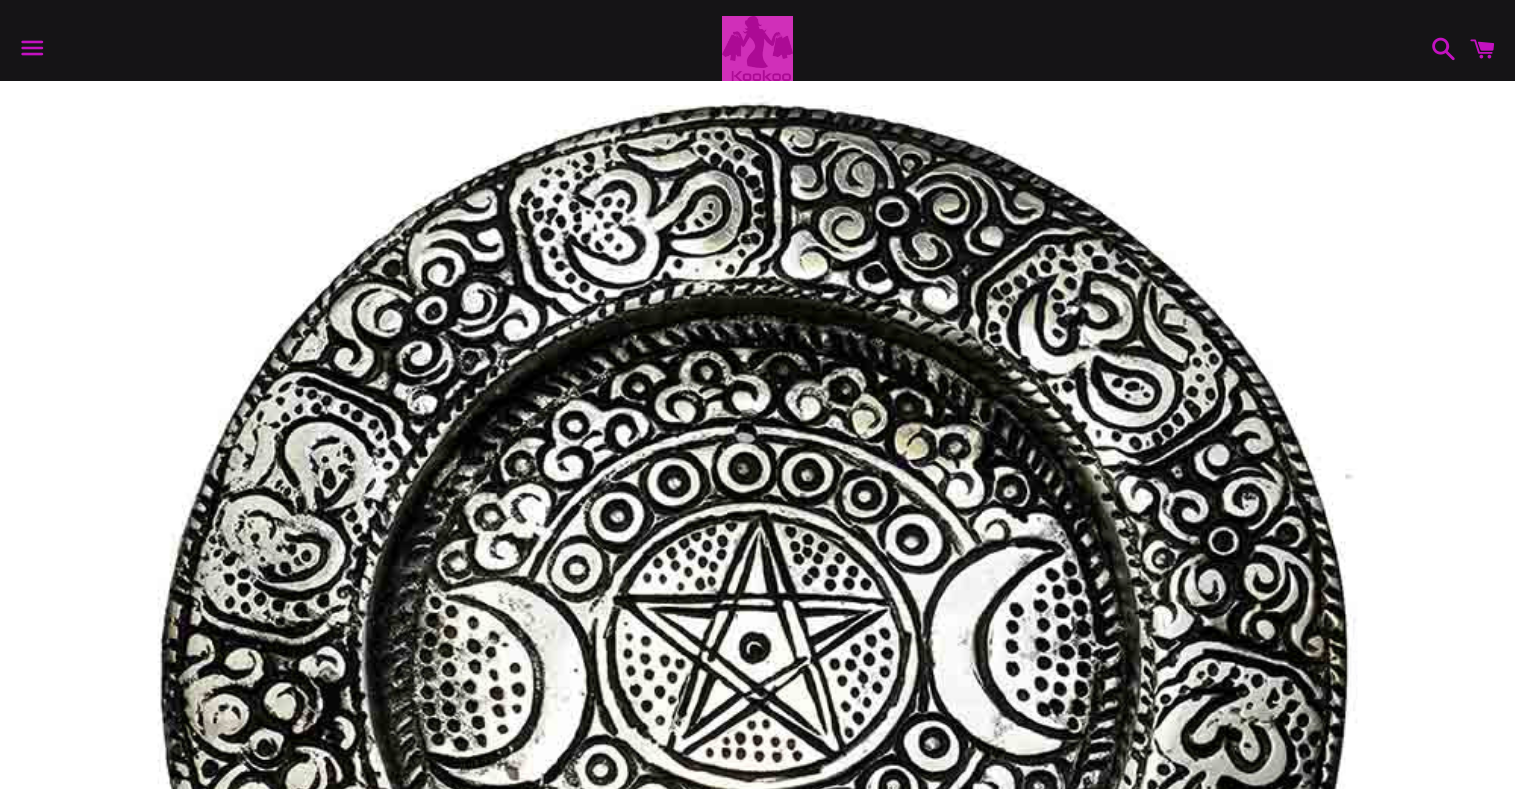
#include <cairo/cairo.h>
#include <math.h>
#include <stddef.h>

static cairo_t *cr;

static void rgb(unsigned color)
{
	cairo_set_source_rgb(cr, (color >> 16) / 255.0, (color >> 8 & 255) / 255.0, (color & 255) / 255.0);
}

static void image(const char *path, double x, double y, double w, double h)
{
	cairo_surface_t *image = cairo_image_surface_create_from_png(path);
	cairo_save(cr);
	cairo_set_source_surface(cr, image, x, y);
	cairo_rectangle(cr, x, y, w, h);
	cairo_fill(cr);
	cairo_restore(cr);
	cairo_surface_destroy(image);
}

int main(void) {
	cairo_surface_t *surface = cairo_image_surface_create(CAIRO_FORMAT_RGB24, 1515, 789);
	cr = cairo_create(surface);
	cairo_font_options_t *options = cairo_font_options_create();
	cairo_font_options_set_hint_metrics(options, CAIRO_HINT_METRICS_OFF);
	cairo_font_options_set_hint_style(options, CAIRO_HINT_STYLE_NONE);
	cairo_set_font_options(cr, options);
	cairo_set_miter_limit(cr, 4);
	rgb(0x151416);
	cairo_paint(cr);
	image("img/1.png", 21, 40, 23, 16);
	image("img/2.png", 722, 16, 71, 65);
	image("img/3.png", 1432, 37, 23, 24);
	image("img/4.png", 1470, 39, 25, 20);
	image("img/5.png", 0, 81, 1515, 708);
	cairo_surface_write_to_png(surface, "page.png");
	cairo_font_options_destroy(options);
	cairo_destroy(cr);
	cairo_surface_destroy(surface);
	return 0;
}
